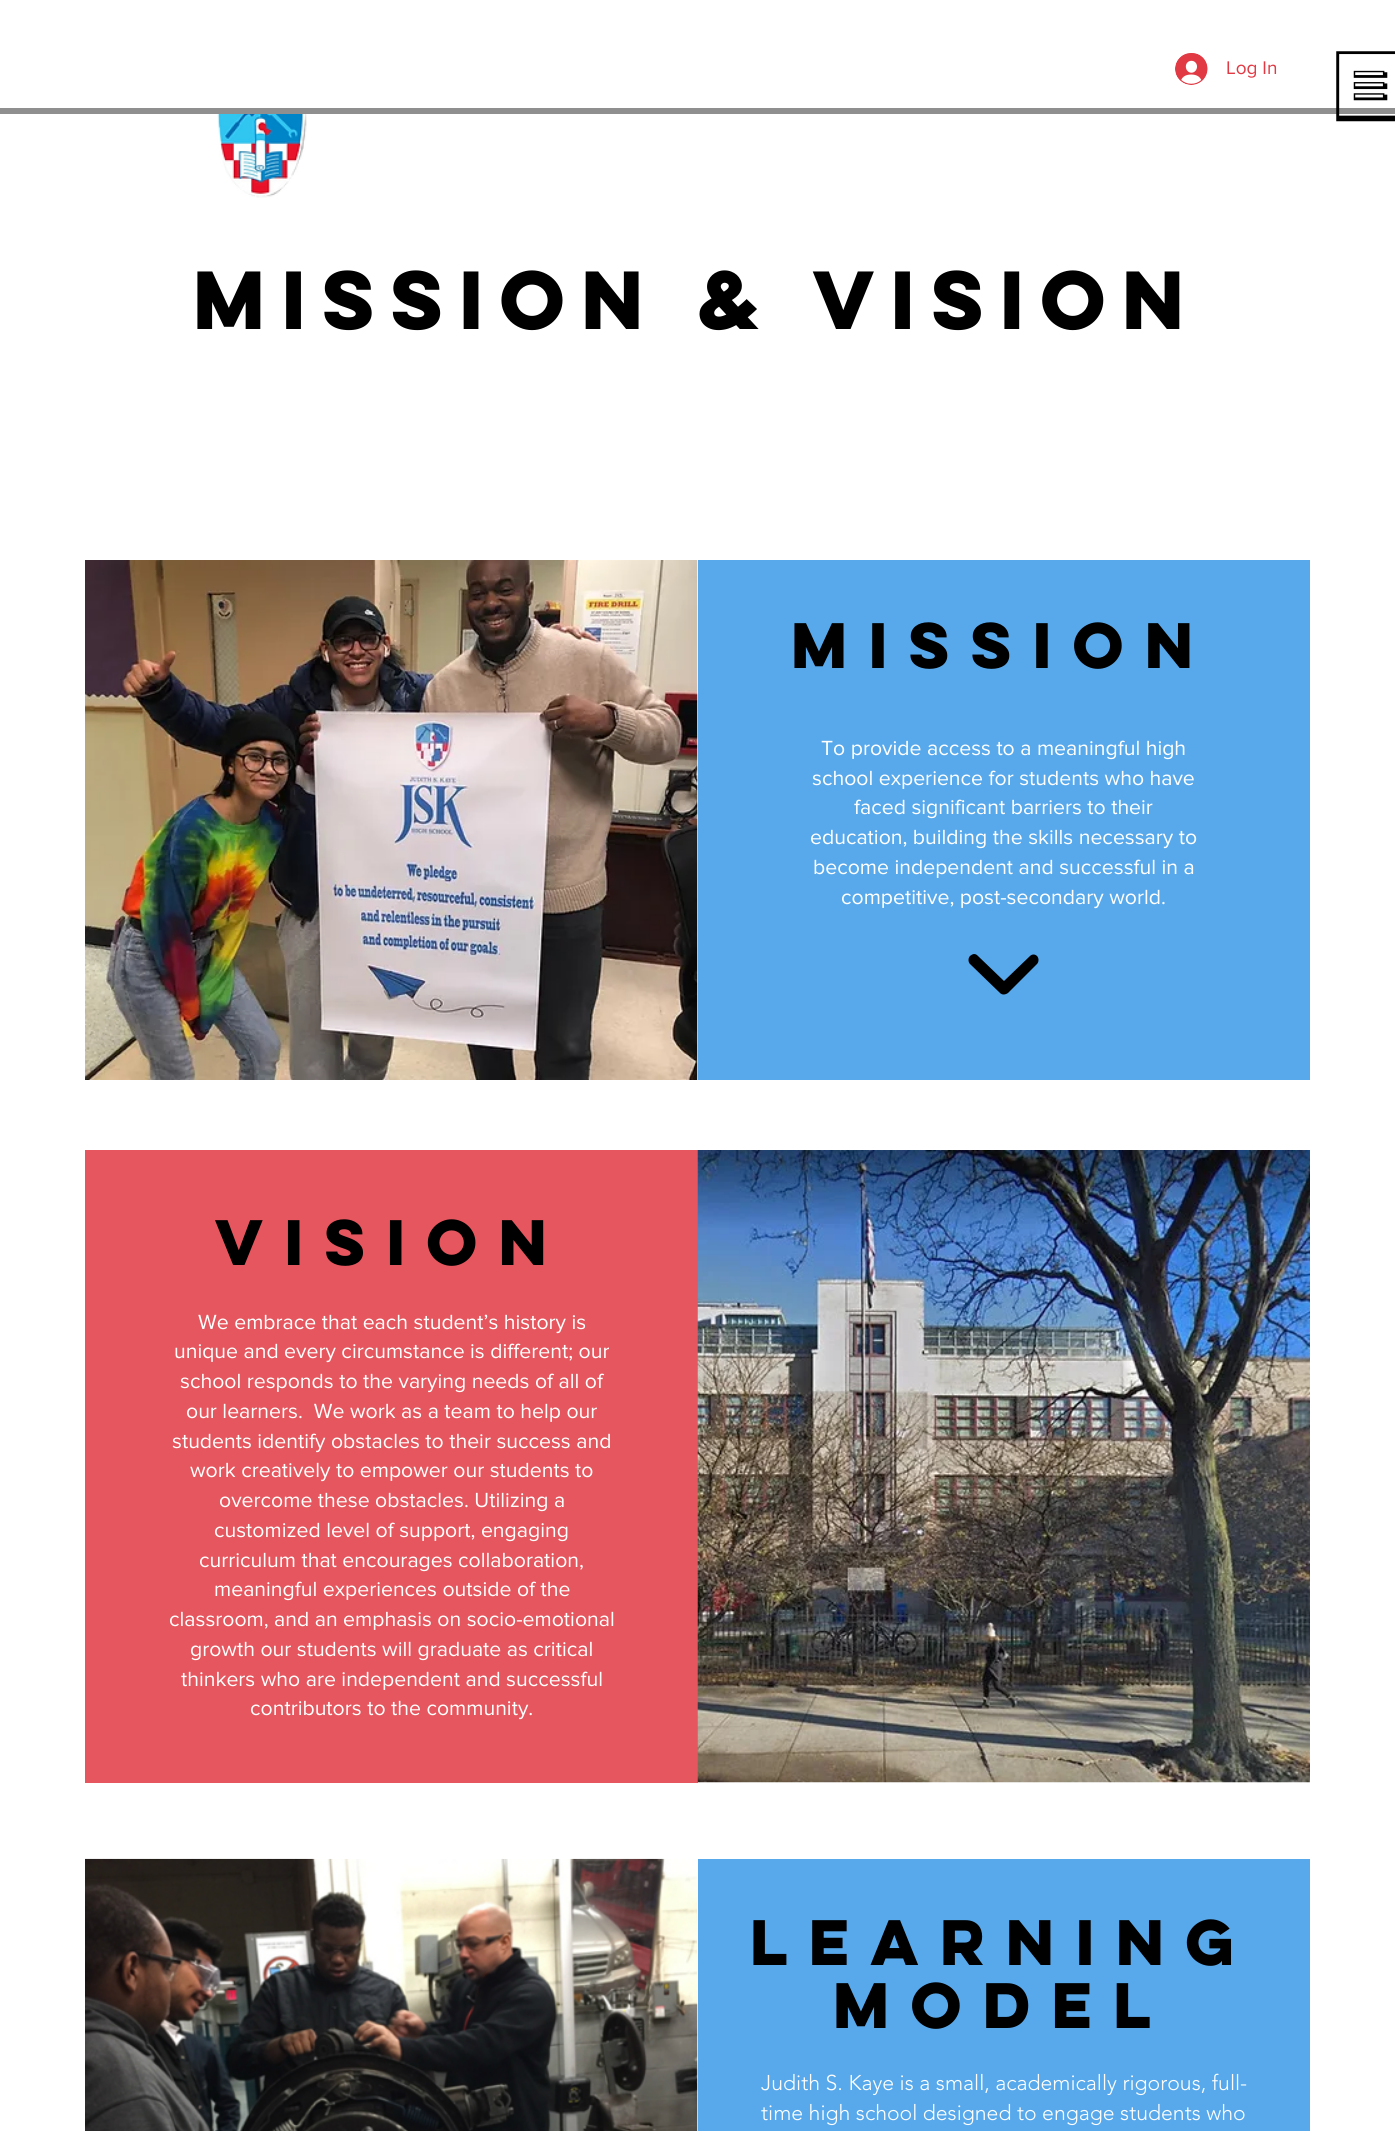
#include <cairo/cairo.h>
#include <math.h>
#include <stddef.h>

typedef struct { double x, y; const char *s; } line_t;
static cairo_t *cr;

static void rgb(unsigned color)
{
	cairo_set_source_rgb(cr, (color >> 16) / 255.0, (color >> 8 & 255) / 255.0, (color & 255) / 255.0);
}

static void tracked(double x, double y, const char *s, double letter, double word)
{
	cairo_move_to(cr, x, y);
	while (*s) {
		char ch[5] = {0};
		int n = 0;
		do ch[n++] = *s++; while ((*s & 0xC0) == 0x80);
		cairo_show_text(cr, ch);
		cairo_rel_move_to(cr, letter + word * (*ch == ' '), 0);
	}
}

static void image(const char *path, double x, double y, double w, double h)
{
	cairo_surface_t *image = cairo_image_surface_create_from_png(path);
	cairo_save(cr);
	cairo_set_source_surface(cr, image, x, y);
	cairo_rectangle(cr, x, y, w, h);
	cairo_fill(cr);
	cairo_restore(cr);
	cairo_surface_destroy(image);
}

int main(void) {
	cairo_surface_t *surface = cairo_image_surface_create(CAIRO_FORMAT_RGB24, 1395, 2131);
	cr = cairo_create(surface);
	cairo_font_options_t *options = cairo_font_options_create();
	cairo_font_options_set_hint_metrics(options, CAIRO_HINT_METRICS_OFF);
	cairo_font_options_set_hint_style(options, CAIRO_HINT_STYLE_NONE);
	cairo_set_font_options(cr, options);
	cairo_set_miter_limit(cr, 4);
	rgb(0xffffff);
	cairo_paint(cr);
	image("img/1.png", 1175, 53, 33, 32);
	rgb(0x8f8f8f);
	cairo_rectangle(cr, 0, 108, 1395, 6);
	cairo_fill(cr);
	image("img/2.png", 1336, 51, 59, 71);
	image("img/3.png", 217, 114, 90, 84);
	image("img/4.png", 85, 560, 613, 520);
	rgb(0x58a9ec);
	cairo_rectangle(cr, 698, 560, 612, 520);
	cairo_fill(cr);
	rgb(0x000000);
	cairo_new_path(cr);
	cairo_move_to(cr, 974, 954);
	cairo_curve_to(cr, 976, 954, 977, 955, 978, 956);
	cairo_line_to(cr, 1004, 981);
	cairo_line_to(cr, 1030, 956);
	cairo_curve_to(cr, 1032, 954, 1035, 954, 1037, 956);
	cairo_curve_to(cr, 1039, 958, 1039, 962, 1037, 964);
	cairo_line_to(cr, 1008, 993);
	cairo_curve_to(cr, 1005, 995, 1002, 995, 1000, 993);
	cairo_line_to(cr, 970, 964);
	cairo_curve_to(cr, 968, 962, 968, 958, 970, 956);
	cairo_curve_to(cr, 971, 955, 973, 954, 974, 954);
	cairo_close_path(cr);
	cairo_fill(cr);
	rgb(0xe5565e);
	cairo_rectangle(cr, 85, 1150, 613, 633);
	cairo_fill(cr);
	image("img/5.png", 697, 1150, 613, 633);
	image("img/6.png", 85, 1858, 613, 273);
	rgb(0x58a9ec);
	cairo_rectangle(cr, 698, 1859, 612, 272);
	cairo_fill(cr);
	cairo_select_font_face(cr, "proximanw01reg", CAIRO_FONT_SLANT_NORMAL, CAIRO_FONT_WEIGHT_NORMAL);
	cairo_set_font_size(cr, 19);
	rgb(0xe13a44);
	cairo_move_to(cr, 1226, 74);
	cairo_show_text(cr, "Log In");
	cairo_select_font_face(cr, "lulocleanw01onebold", CAIRO_FONT_SLANT_NORMAL, CAIRO_FONT_WEIGHT_BOLD);
	cairo_set_font_size(cr, 73.75);
	rgb(0x000000);
	cairo_move_to(cr, 193, 329);
	cairo_show_text(cr, "MISSION & VISION");
	cairo_set_font_size(cr, 57.5);
	tracked(791, 668, "Mission", 8.5, 0);
	cairo_select_font_face(cr, "proximanw01reg", CAIRO_FONT_SLANT_NORMAL, CAIRO_FONT_WEIGHT_NORMAL);
	cairo_set_font_size(cr, 21.25);
	rgb(0xfffffe);
	{
		static const line_t items[] = {
			{821, 755, "To provide access to a meaningful high"},
			{812, 785, "school experience for students who have"},
			{854, 814, "faced significant barriers to their"},
			{810, 844, "education, building the skills necessary to"},
			{813, 874, "become independent and successful in a"},
			{841, 904, "competitive, post-secondary world."},
		};
		for (size_t i = 0; i < sizeof items / sizeof *items; i++) {
			cairo_move_to(cr, items[i].x, items[i].y);
			cairo_show_text(cr, items[i].s);
		}
	}
	cairo_select_font_face(cr, "lulocleanw01onebold", CAIRO_FONT_SLANT_NORMAL, CAIRO_FONT_WEIGHT_BOLD);
	cairo_set_font_size(cr, 57.5);
	rgb(0x000000);
	tracked(215, 1265, "Vision", 8.5, 0);
	cairo_select_font_face(cr, "proximanw01reg", CAIRO_FONT_SLANT_NORMAL, CAIRO_FONT_WEIGHT_NORMAL);
	cairo_set_font_size(cr, 21.25);
	rgb(0xfffffe);
	{
		static const line_t items[] = {
			{198, 1329, "We embrace that each student’s history is"},
			{174, 1358, "unique and every circumstance is different; our"},
			{180, 1388, "school responds to the varying needs of all of"},
			{186, 1418, "our learners.  We work as a team to help our"},
			{172, 1448, "students identify obstacles to their success and"},
			{190, 1477, "work creatively to empower our students to"},
			{219, 1507, "overcome these obstacles. Utilizing a"},
			{214, 1537, "customized level of support, engaging"},
			{199, 1567, "curriculum that encourages collaboration,"},
			{214, 1596, "meaningful experiences outside of the"},
			{169, 1626, "classroom, and an emphasis on socio-emotional"},
			{190, 1656, "growth our students will graduate as critical"},
			{181, 1686, "thinkers who are independent and successful"},
			{250, 1715, "contributors to the community."},
		};
		for (size_t i = 0; i < sizeof items / sizeof *items; i++) {
			cairo_move_to(cr, items[i].x, items[i].y);
			cairo_show_text(cr, items[i].s);
		}
	}
	cairo_select_font_face(cr, "lulocleanw01onebold", CAIRO_FONT_SLANT_NORMAL, CAIRO_FONT_WEIGHT_BOLD);
	cairo_set_font_size(cr, 57.5);
	rgb(0x000000);
	tracked(750, 1965, "Learning", 8.5, 0);
	tracked(833, 2028, "Model", 8.5, 0);
	cairo_select_font_face(cr, "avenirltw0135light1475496 Light", CAIRO_FONT_SLANT_NORMAL, CAIRO_FONT_WEIGHT_NORMAL);
	cairo_set_font_size(cr, 21.25);
	rgb(0xfffffe);
	cairo_move_to(cr, 761, 2090);
	cairo_show_text(cr, "Judith S. Kaye is a small, academically rigorous, full-");
	cairo_move_to(cr, 761, 2120);
	cairo_show_text(cr, "time high school designed to engage students who");
	cairo_surface_write_to_png(surface, "page.png");
	cairo_font_options_destroy(options);
	cairo_destroy(cr);
	cairo_surface_destroy(surface);
	return 0;
}
